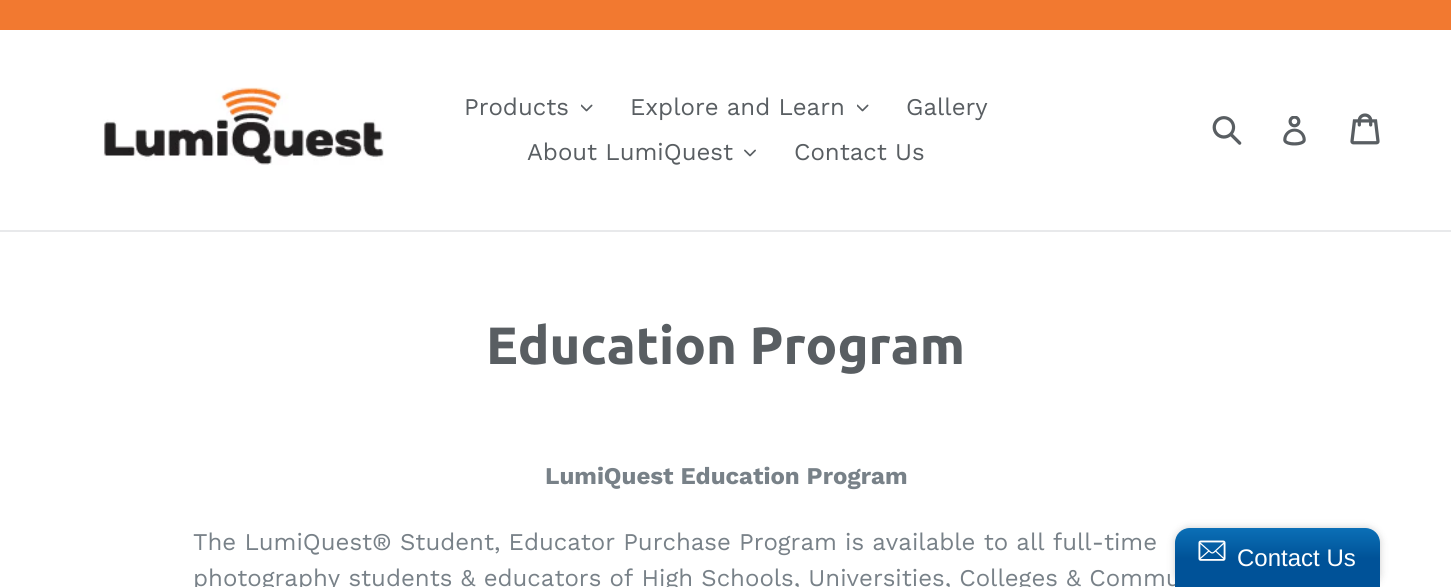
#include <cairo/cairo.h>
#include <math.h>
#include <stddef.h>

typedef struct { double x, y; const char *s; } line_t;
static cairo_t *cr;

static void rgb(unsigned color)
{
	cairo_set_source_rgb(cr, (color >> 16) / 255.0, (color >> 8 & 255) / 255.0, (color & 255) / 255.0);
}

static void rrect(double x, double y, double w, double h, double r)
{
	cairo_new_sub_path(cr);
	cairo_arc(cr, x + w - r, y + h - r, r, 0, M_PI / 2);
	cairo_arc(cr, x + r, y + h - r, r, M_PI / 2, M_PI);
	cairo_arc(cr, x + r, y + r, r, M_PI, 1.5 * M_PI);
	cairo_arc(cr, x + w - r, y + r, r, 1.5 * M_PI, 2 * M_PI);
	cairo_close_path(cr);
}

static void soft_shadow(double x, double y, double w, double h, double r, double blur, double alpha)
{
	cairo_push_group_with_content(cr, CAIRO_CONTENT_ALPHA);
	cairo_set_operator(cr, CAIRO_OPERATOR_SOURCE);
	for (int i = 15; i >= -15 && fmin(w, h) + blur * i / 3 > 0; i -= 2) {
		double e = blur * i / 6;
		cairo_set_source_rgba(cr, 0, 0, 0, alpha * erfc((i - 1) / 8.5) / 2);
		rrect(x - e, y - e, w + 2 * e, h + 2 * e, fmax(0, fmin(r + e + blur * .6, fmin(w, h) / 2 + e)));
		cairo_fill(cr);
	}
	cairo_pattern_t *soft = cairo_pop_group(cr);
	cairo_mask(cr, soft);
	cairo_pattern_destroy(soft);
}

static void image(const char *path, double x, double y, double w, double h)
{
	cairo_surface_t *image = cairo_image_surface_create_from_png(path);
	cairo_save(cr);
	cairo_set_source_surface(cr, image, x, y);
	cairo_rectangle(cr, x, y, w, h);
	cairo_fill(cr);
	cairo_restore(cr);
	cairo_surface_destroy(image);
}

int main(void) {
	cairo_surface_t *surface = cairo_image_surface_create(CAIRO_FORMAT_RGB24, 1451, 587);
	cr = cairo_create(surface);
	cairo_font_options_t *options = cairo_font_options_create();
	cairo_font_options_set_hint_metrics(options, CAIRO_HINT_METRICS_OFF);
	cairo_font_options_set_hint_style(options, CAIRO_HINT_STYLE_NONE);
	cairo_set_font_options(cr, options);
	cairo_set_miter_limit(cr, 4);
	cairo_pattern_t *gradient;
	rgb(0xffffff);
	cairo_paint(cr);
	rgb(0xf27930);
	cairo_rectangle(cr, 0, 0, 1451, 30);
	cairo_fill(cr);
	rgb(0xe8e9eb);
	cairo_rectangle(cr, 0, 230, 1451, 2);
	cairo_fill(cr);
	image("img/1.png", 103, 87, 281, 78);
	image("img/2.png", 581, 104, 12, 8);
	image("img/2.png", 857, 104, 12, 8);
	image("img/3.png", 744, 149, 12, 8);
	image("img/4.png", 1212, 116, 30, 29);
	image("img/5.png", 1283, 116, 23, 30);
	image("img/6.png", 1350, 113, 30, 32);
	rgb(0x000000);
	soft_shadow(1175, 528, 205, 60, 15, 4, 0.2);
	cairo_select_font_face(cr, "Work Sans", CAIRO_FONT_SLANT_NORMAL, CAIRO_FONT_WEIGHT_NORMAL);
	cairo_set_font_size(cr, 24);
	rgb(0x595e62);
	{
		static const line_t items[] = {
			{464, 115, "Products"},
			{630, 115, "Explore and Learn"},
			{906, 115, "Gallery"},
			{527, 160, "About LumiQuest"},
			{794, 160, "Contact Us"},
		};
		for (size_t i = 0; i < sizeof items / sizeof *items; i++) {
			cairo_move_to(cr, items[i].x, items[i].y);
			cairo_show_text(cr, items[i].s);
		}
	}
	cairo_select_font_face(cr, "Ubuntu", CAIRO_FONT_SLANT_NORMAL, CAIRO_FONT_WEIGHT_BOLD);
	cairo_set_font_size(cr, 52.5);
	cairo_move_to(cr, 486, 364);
	cairo_show_text(cr, "Education Program");
	cairo_select_font_face(cr, "Work Sans", CAIRO_FONT_SLANT_NORMAL, CAIRO_FONT_WEIGHT_BOLD);
	cairo_set_font_size(cr, 24);
	rgb(0x788188);
	cairo_move_to(cr, 545, 484);
	cairo_show_text(cr, "LumiQuest Education Program");
	cairo_select_font_face(cr, "Work Sans", CAIRO_FONT_SLANT_NORMAL, CAIRO_FONT_WEIGHT_NORMAL);
	cairo_move_to(cr, 193, 550);
	cairo_show_text(cr, "The LumiQuest® Student, Educator Purchase Program is available to all full-time");
	cairo_move_to(cr, 193, 586);
	cairo_show_text(cr, "photography students & educators of High Schools, Universities, Colleges & Commu");
	gradient = cairo_pattern_create_linear(1277, 528, 1277, 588);
	cairo_pattern_add_color_stop_rgba(gradient, 0, 0.043, 0.439, 0.714, 1);
	cairo_pattern_add_color_stop_rgba(gradient, 0.5, 0, 0.322, 0.596, 1);
	cairo_set_source(cr, gradient);
	cairo_pattern_destroy(gradient);
	cairo_new_path(cr);
	cairo_move_to(cr, 1190, 528);
	cairo_line_to(cr, 1365, 528);
	cairo_curve_to(cr, 1373.5, 528, 1380, 534.5, 1380, 543);
	cairo_line_to(cr, 1380, 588);
	cairo_line_to(cr, 1175, 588);
	cairo_line_to(cr, 1175, 543);
	cairo_curve_to(cr, 1175, 534.5, 1181.5, 528, 1190, 528);
	cairo_close_path(cr);
	cairo_fill(cr);
	image("img/7.png", 1198, 540, 28, 21);
	cairo_select_font_face(cr, "Liberation Sans", CAIRO_FONT_SLANT_NORMAL, CAIRO_FONT_WEIGHT_NORMAL);
	rgb(0xffffff);
	cairo_move_to(cr, 1237, 566);
	cairo_show_text(cr, "Contact Us");
	cairo_surface_write_to_png(surface, "page.png");
	cairo_font_options_destroy(options);
	cairo_destroy(cr);
	cairo_surface_destroy(surface);
	return 0;
}
